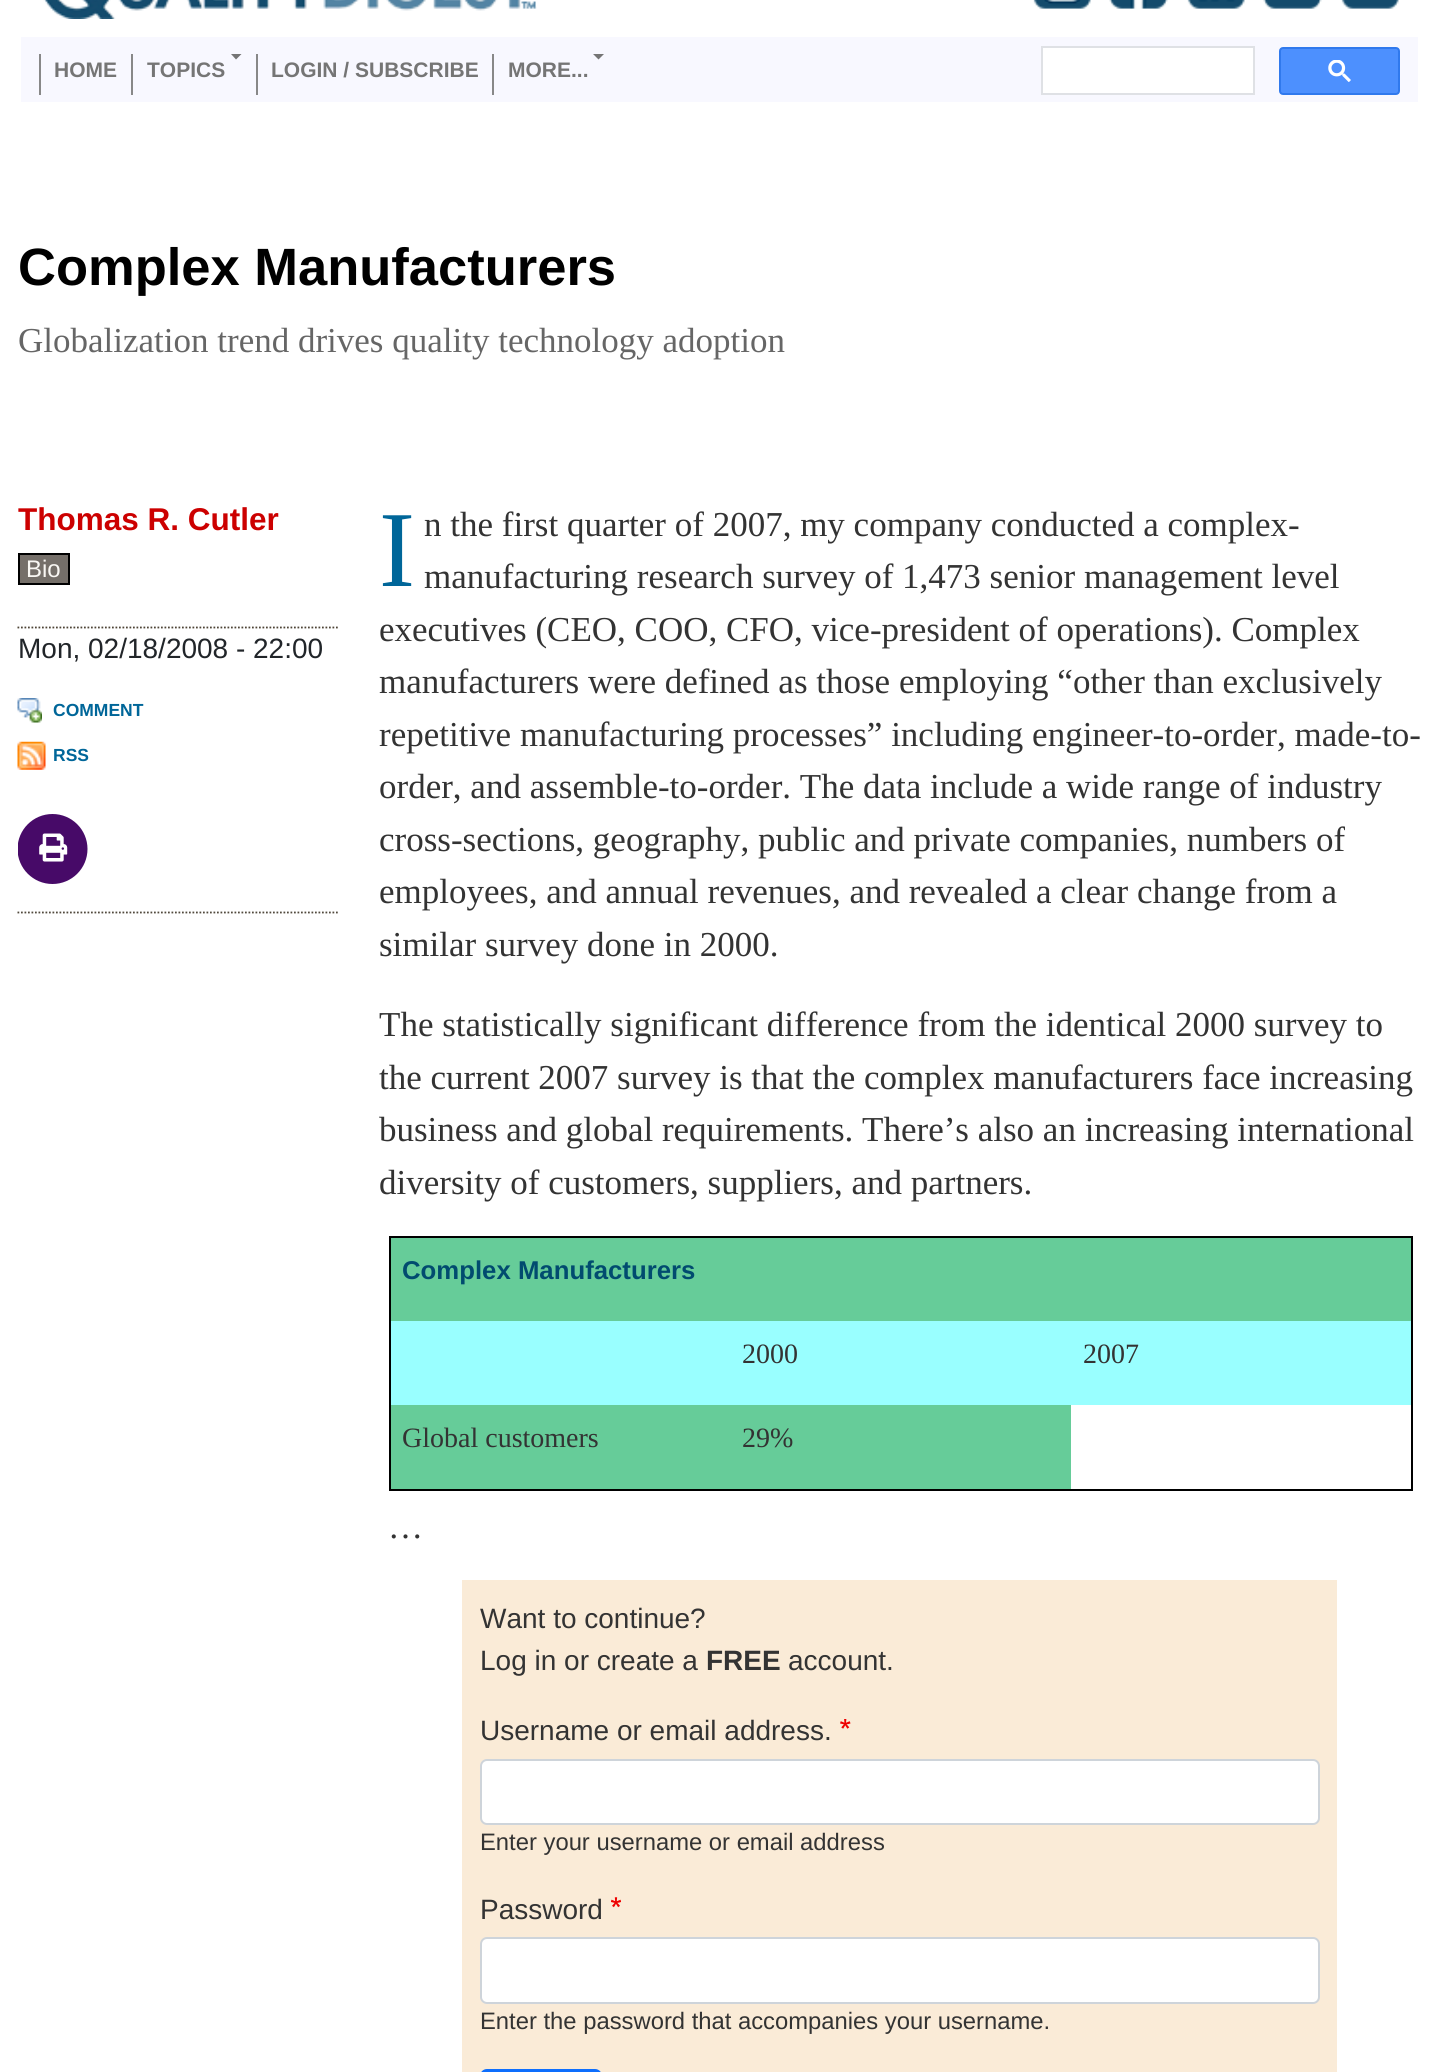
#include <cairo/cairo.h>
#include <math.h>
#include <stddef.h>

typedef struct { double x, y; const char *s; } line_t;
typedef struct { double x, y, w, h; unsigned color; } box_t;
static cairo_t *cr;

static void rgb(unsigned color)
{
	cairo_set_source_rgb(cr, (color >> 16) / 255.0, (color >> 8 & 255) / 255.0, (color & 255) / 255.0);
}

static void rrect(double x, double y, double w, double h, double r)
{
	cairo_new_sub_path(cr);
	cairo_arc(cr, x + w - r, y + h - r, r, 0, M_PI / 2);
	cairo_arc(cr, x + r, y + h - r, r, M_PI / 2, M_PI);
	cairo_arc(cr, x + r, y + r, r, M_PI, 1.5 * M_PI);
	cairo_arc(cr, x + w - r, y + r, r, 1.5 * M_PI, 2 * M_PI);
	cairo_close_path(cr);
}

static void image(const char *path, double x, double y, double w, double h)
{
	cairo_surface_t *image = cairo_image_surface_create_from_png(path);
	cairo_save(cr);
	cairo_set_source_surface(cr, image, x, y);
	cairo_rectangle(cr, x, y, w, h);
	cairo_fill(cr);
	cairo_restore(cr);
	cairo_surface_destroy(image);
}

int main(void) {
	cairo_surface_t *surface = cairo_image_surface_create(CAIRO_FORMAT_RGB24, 1437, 2072);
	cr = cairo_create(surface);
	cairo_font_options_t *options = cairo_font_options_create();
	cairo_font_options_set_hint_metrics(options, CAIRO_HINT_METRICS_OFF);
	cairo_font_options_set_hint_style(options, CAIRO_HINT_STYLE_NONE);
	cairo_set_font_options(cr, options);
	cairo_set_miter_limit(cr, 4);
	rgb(0xffffff);
	cairo_paint(cr);
	image("img/1.png", 43, 0, 494, 19);
	image("img/2.png", 1033, 0, 58, 9);
	image("img/3.png", 1109, 0, 59, 9);
	image("img/4.png", 1187, 0, 58, 9);
	image("img/5.png", 1263, 0, 59, 9);
	image("img/6.png", 1341, 0, 58, 9);
	{
		static const box_t items[] = {
			{21, 37, 1397, 65, 0xf8f8ff},
			{39, 54, 2, 41, 0x888888},
			{131, 54, 2, 41, 0x888888},
		};
		for (size_t i = 0; i < sizeof items / sizeof *items; i++) {
			rgb(items[i].color);
			cairo_rectangle(cr, items[i].x, items[i].y, items[i].w, items[i].h);
			cairo_fill(cr);
		}
	}
	rgb(0x757575);
	cairo_new_path(cr);
	cairo_move_to(cr, 231, 54);
	cairo_line_to(cr, 241.5, 54);
	cairo_line_to(cr, 236, 59.5);
	cairo_close_path(cr);
	cairo_fill(cr);
	rgb(0x888888);
	cairo_rectangle(cr, 256, 54, 2, 41);
	cairo_fill(cr);
	cairo_rectangle(cr, 492, 54, 2, 41);
	cairo_fill(cr);
	rgb(0x757575);
	cairo_new_path(cr);
	cairo_move_to(cr, 593, 54);
	cairo_line_to(cr, 604, 54);
	cairo_line_to(cr, 598.5, 59.5);
	cairo_close_path(cr);
	cairo_fill(cr);
	rgb(0xffffff);
	cairo_rectangle(cr, 1042, 47, 212, 47);
	cairo_fill_preserve(cr);
	rgb(0xdfe1e5);
	cairo_stroke(cr);
	rgb(0x4d90fe);
	rrect(1280, 48, 119, 46, 3);
	cairo_fill_preserve(cr);
	rgb(0x3079ed);
	cairo_stroke(cr);
	image("img/7.png", 1328, 60, 23, 22);
	rgb(0x756f69);
	cairo_rectangle(cr, 19, 554, 50, 30);
	cairo_fill_preserve(cr);
	rgb(0x000000);
	cairo_stroke(cr);
	cairo_new_path(cr);
	cairo_move_to(cr, 17.5, 627.5);
	cairo_line_to(cr, 338, 627.5);
	rgb(0x4d4436);
	cairo_set_line_width(cr, 1.8);
	cairo_set_dash(cr, (double[]){1.75, 1.75}, 2, 0);
	cairo_stroke(cr);
	cairo_new_path(cr);
	cairo_move_to(cr, 17.5, 912.5);
	cairo_line_to(cr, 338, 912.5);
	rgb(0x51493d);
	cairo_stroke(cr);
	image("img/8.png", 17, 698, 25, 25);
	image("img/9.png", 17, 741, 29, 29);
	image("img/10.png", 18, 814, 70, 70);
	{
		static const box_t items[] = {
			{389, 1236, 1023, 2, 0x000000},
			{1411, 1236, 2, 255, 0x000000},
			{389, 1489, 1023, 2, 0x000000},
			{389, 1236, 2, 255, 0x000000},
			{391, 1238, 1020, 83, 0x66cc99},
			{391, 1321, 1020, 84, 0x99ffff},
			{391, 1405, 680, 84, 0x66cc99},
			{462, 1580, 875, 492, 0xfaebd7},
		};
		for (size_t i = 0; i < sizeof items / sizeof *items; i++) {
			rgb(items[i].color);
			cairo_rectangle(cr, items[i].x, items[i].y, items[i].w, items[i].h);
			cairo_fill(cr);
		}
	}
	image("img/11.png", 840, 1719, 11, 10);
	rgb(0xffffff);
	rrect(481, 1760, 838, 64, 6);
	cairo_fill_preserve(cr);
	rgb(0xced4da);
	cairo_set_line_width(cr, 2);
	cairo_set_dash(cr, NULL, 0, 0);
	cairo_stroke(cr);
	image("img/12.png", 611, 1897, 10, 11);
	rgb(0xffffff);
	rrect(481, 1938, 838, 65, 6);
	cairo_fill_preserve(cr);
	rgb(0xced4da);
	cairo_stroke(cr);
	rgb(0x0d6efd);
	rrect(481, 2070, 120, 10, 6);
	cairo_fill_preserve(cr);
	cairo_stroke(cr);
	cairo_select_font_face(cr, "Liberation Sans", CAIRO_FONT_SLANT_NORMAL, CAIRO_FONT_WEIGHT_BOLD);
	cairo_set_font_size(cr, 21);
	rgb(0x757575);
	{
		static const line_t items[] = {
			{54, 77, "HOME"},
			{147, 77, "TOPICS"},
			{271, 77, "LOGIN / SUBSCRIBE"},
			{508, 77, "MORE..."},
		};
		for (size_t i = 0; i < sizeof items / sizeof *items; i++) {
			cairo_move_to(cr, items[i].x, items[i].y);
			cairo_show_text(cr, items[i].s);
		}
	}
	cairo_set_font_size(cr, 52.5);
	rgb(0x000000);
	cairo_move_to(cr, 18, 285);
	cairo_show_text(cr, "Complex Manufacturers");
	cairo_select_font_face(cr, "Liberation Serif", CAIRO_FONT_SLANT_NORMAL, CAIRO_FONT_WEIGHT_NORMAL);
	cairo_set_font_size(cr, 35);
	rgb(0x666666);
	cairo_move_to(cr, 18, 352);
	cairo_show_text(cr, "Globalization trend drives quality technology adoption");
	cairo_select_font_face(cr, "Liberation Sans", CAIRO_FONT_SLANT_NORMAL, CAIRO_FONT_WEIGHT_BOLD);
	cairo_set_font_size(cr, 31.5);
	rgb(0xcc0000);
	cairo_move_to(cr, 18, 530);
	cairo_show_text(cr, "Thomas R. Cutler");
	cairo_select_font_face(cr, "Liberation Sans", CAIRO_FONT_SLANT_NORMAL, CAIRO_FONT_WEIGHT_NORMAL);
	cairo_set_font_size(cr, 24);
	rgb(0xf9f7f3);
	cairo_move_to(cr, 26, 577);
	cairo_show_text(cr, "Bio");
	cairo_set_font_size(cr, 28);
	rgb(0x212529);
	cairo_move_to(cr, 18, 658);
	cairo_show_text(cr, "Mon, 02/18/2008 - 22:00");
	cairo_select_font_face(cr, "Liberation Sans", CAIRO_FONT_SLANT_NORMAL, CAIRO_FONT_WEIGHT_BOLD);
	cairo_set_font_size(cr, 17.5);
	rgb(0x006699);
	cairo_move_to(cr, 53, 716);
	cairo_show_text(cr, "COMMENT");
	cairo_move_to(cr, 53, 761);
	cairo_show_text(cr, "RSS");
	cairo_select_font_face(cr, "Liberation Serif", CAIRO_FONT_SLANT_NORMAL, CAIRO_FONT_WEIGHT_NORMAL);
	cairo_set_font_size(cr, 108);
	cairo_move_to(cr, 379, 586);
	cairo_show_text(cr, "I");
	cairo_set_font_size(cr, 35);
	rgb(0x333333);
	{
		static const line_t items[] = {
			{424, 536, "n the first quarter of 2007, my company conducted a complex-"},
			{424, 588, "manufacturing research survey of 1,473 senior management level"},
			{379, 641, "executives (CEO, COO, CFO, vice-president of operations). Complex"},
			{379, 693, "manufacturers were defined as those employing “other than exclusively"},
			{379, 746, "repetitive manufacturing processes” including engineer-to-order, made-to-"},
			{379, 798, "order, and assemble-to-order. The data include a wide range of industry"},
			{379, 851, "cross-sections, geography, public and private companies, numbers of"},
			{379, 903, "employees, and annual revenues, and revealed a clear change from a"},
			{379, 956, "similar survey done in 2000."},
			{379, 1036, "The statistically significant difference from the identical 2000 survey to"},
			{379, 1089, "the current 2007 survey is that the complex manufacturers face increasing"},
			{379, 1141, "business and global requirements. There’s also an increasing international"},
			{379, 1194, "diversity of customers, suppliers, and partners."},
		};
		for (size_t i = 0; i < sizeof items / sizeof *items; i++) {
			cairo_move_to(cr, items[i].x, items[i].y);
			cairo_show_text(cr, items[i].s);
		}
	}
	cairo_select_font_face(cr, "Liberation Sans", CAIRO_FONT_SLANT_NORMAL, CAIRO_FONT_WEIGHT_BOLD);
	cairo_set_font_size(cr, 25.75);
	rgb(0x014b6f);
	cairo_move_to(cr, 402, 1279);
	cairo_show_text(cr, "Complex Manufacturers");
	cairo_select_font_face(cr, "Liberation Serif", CAIRO_FONT_SLANT_NORMAL, CAIRO_FONT_WEIGHT_NORMAL);
	cairo_set_font_size(cr, 28);
	rgb(0x333333);
	{
		static const line_t items[] = {
			{742, 1363, "2000"},
			{1083, 1363, "2007"},
			{402, 1447, "Global customers"},
			{742, 1447, "29%"},
		};
		for (size_t i = 0; i < sizeof items / sizeof *items; i++) {
			cairo_move_to(cr, items[i].x, items[i].y);
			cairo_show_text(cr, items[i].s);
		}
	}
	cairo_set_font_size(cr, 35);
	cairo_move_to(cr, 388, 1538);
	cairo_show_text(cr, "…");
	cairo_select_font_face(cr, "Liberation Sans", CAIRO_FONT_SLANT_NORMAL, CAIRO_FONT_WEIGHT_NORMAL);
	cairo_set_font_size(cr, 28);
	cairo_move_to(cr, 480, 1628);
	cairo_show_text(cr, "Want to continue?");
	cairo_move_to(cr, 480, 1670);
	cairo_show_text(cr, "Log in or create a");
	cairo_select_font_face(cr, "Liberation Sans", CAIRO_FONT_SLANT_NORMAL, CAIRO_FONT_WEIGHT_BOLD);
	cairo_move_to(cr, 706, 1670);
	cairo_show_text(cr, "FREE");
	cairo_select_font_face(cr, "Liberation Sans", CAIRO_FONT_SLANT_NORMAL, CAIRO_FONT_WEIGHT_NORMAL);
	cairo_move_to(cr, 788, 1670);
	cairo_show_text(cr, "account.");
	cairo_move_to(cr, 480, 1740);
	cairo_show_text(cr, "Username or email address.");
	cairo_set_font_size(cr, 23.8);
	cairo_move_to(cr, 480, 1850);
	cairo_show_text(cr, "Enter your username or email address");
	cairo_set_font_size(cr, 28);
	cairo_move_to(cr, 480, 1919);
	cairo_show_text(cr, "Password");
	cairo_set_font_size(cr, 23.8);
	cairo_move_to(cr, 480, 2029);
	cairo_show_text(cr, "Enter the password that accompanies your username.");
	cairo_surface_write_to_png(surface, "page.png");
	cairo_font_options_destroy(options);
	cairo_destroy(cr);
	cairo_surface_destroy(surface);
	return 0;
}
